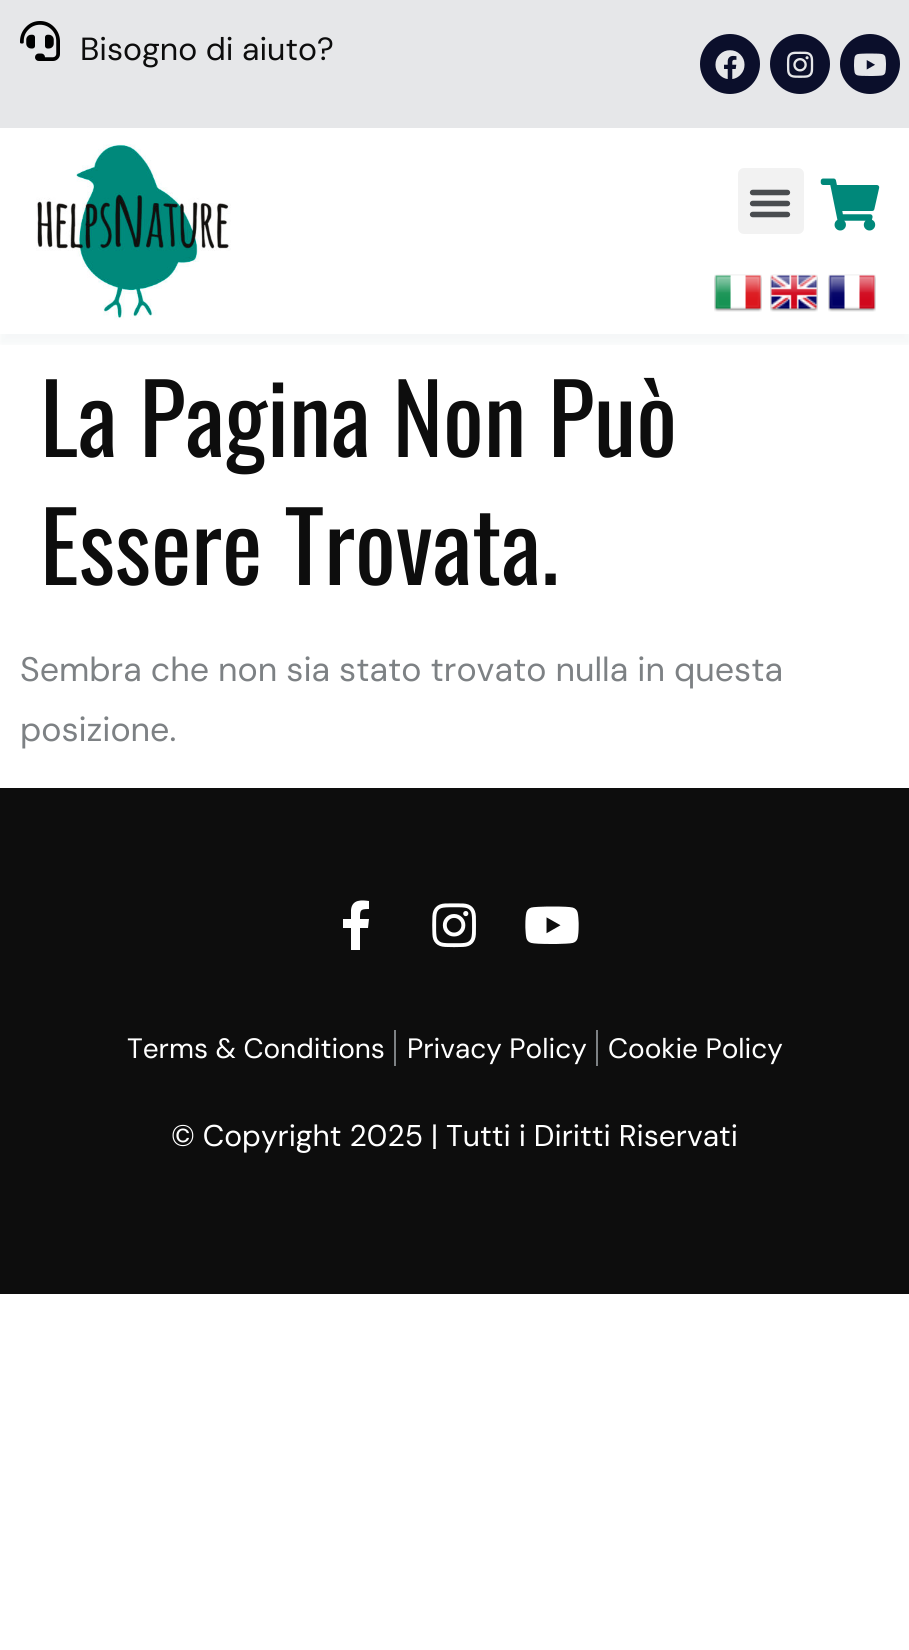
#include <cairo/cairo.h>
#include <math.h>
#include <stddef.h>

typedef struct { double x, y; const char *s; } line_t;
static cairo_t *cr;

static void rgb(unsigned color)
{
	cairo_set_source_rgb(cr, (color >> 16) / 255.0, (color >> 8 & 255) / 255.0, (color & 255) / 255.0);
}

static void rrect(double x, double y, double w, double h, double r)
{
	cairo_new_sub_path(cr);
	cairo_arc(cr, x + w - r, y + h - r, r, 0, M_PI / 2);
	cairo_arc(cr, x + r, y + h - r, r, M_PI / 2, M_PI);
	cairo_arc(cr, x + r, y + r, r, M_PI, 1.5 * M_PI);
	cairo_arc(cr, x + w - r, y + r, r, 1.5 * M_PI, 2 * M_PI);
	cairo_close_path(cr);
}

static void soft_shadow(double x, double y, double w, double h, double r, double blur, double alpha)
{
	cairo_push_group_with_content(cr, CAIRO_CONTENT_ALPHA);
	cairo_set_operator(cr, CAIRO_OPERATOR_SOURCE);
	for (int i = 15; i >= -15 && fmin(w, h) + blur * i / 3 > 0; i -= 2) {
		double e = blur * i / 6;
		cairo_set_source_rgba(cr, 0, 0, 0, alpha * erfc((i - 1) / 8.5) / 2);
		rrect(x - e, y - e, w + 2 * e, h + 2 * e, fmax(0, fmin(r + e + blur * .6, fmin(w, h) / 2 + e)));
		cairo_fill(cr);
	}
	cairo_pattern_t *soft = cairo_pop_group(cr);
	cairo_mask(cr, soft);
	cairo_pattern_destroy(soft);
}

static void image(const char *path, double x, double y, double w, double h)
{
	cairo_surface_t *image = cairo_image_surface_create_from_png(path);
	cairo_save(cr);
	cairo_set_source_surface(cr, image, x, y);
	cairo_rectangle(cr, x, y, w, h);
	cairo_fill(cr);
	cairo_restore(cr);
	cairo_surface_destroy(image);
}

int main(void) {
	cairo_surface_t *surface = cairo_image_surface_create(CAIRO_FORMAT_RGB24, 909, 1650);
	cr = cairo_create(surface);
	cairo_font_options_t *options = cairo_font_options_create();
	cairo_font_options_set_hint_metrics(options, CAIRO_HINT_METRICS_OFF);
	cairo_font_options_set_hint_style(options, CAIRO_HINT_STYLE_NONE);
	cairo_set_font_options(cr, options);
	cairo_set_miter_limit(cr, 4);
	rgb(0xffffff);
	cairo_paint(cr);
	rgb(0xe6e7e9);
	cairo_rectangle(cr, 0, 0, 909, 128);
	cairo_fill(cr);
	image("img/1.png", 20, 21, 40, 40);
	rgb(0x0b0f2b);
	cairo_arc(cr, 730, 64, 30, 0, 2 * M_PI);
	cairo_fill(cr);
	image("img/2.png", 715, 50, 30, 29);
	cairo_arc(cr, 800, 64, 30, 0, 2 * M_PI);
	cairo_fill(cr);
	image("img/3.png", 786, 51, 28, 27);
	cairo_arc(cr, 870, 64, 30, 0, 2 * M_PI);
	cairo_fill(cr);
	image("img/4.png", 854, 53, 32, 23);
	cairo_save(cr);
	cairo_rectangle(cr, 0, 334, 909, 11);
	cairo_clip(cr);
	rgb(0x255062);
	soft_shadow(0, 138, 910, 206, 0, 5, 0.05);
	cairo_restore(cr);
	image("img/5.png", 36, 144, 195, 176);
	rgb(0xf2f2f2);
	rrect(738, 168, 66, 66, 6);
	cairo_fill(cr);
	image("img/6.png", 749, 189, 42, 29);
	image("img/7.png", 820, 178, 60, 53);
	image("img/8.png", 714, 274, 48, 38);
	image("img/9.png", 770, 274, 48, 38);
	image("img/10.png", 828, 274, 48, 38);
	rgb(0x0d0d0d);
	cairo_rectangle(cr, 0, 788, 909, 506);
	cairo_fill(cr);
	rgb(0xffffff);
	cairo_new_path(cr);
	cairo_move_to(cr, 368, 928);
	cairo_line_to(cr, 360, 928);
	cairo_line_to(cr, 360, 950);
	cairo_line_to(cr, 351, 950);
	cairo_line_to(cr, 351, 928);
	cairo_line_to(cr, 343, 928);
	cairo_line_to(cr, 343, 919);
	cairo_line_to(cr, 351, 919);
	cairo_line_to(cr, 351, 910);
	cairo_curve_to(cr, 352, 899, 362, 900, 369, 901);
	cairo_line_to(cr, 369, 909);
	cairo_curve_to(cr, 360, 909, 360, 910, 360, 919);
	cairo_line_to(cr, 369, 919);
	cairo_close_path(cr);
	cairo_fill(cr);
	image("img/11.png", 432, 903, 44, 45);
	image("img/12.png", 525, 906, 54, 38);
	rgb(0x7d8184);
	cairo_rectangle(cr, 394, 1030, 2, 36);
	cairo_fill(cr);
	cairo_rectangle(cr, 596, 1030, 2, 36);
	cairo_fill(cr);
	cairo_select_font_face(cr, "DM Sans", CAIRO_FONT_SLANT_NORMAL, CAIRO_FONT_WEIGHT_NORMAL);
	cairo_set_font_size(cr, 32);
	rgb(0x0d0d0d);
	cairo_move_to(cr, 80, 60);
	cairo_show_text(cr, "Bisogno di aiuto?");
	cairo_select_font_face(cr, "Oswald", CAIRO_FONT_SLANT_NORMAL, CAIRO_FONT_WEIGHT_NORMAL);
	cairo_set_font_size(cr, 96);
	cairo_move_to(cr, 40, 457);
	cairo_show_text(cr, "La Pagina Non Può");
	cairo_move_to(cr, 40, 585);
	cairo_show_text(cr, "Essere Trovata.");
	cairo_select_font_face(cr, "DM Sans", CAIRO_FONT_SLANT_NORMAL, CAIRO_FONT_WEIGHT_NORMAL);
	cairo_set_font_size(cr, 34);
	rgb(0x7d8184);
	cairo_move_to(cr, 20, 681);
	cairo_show_text(cr, "Sembra che non sia stato trovato nulla in questa");
	cairo_move_to(cr, 20, 741);
	cairo_show_text(cr, "posizione.");
	cairo_set_font_size(cr, 28);
	rgb(0xffffff);
	{
		static const line_t items[] = {
			{127, 1058, "Terms & Conditions"},
			{407, 1058, "Privacy Policy"},
			{608, 1058, "Cookie Policy"},
		};
		for (size_t i = 0; i < sizeof items / sizeof *items; i++) {
			cairo_move_to(cr, items[i].x, items[i].y);
			cairo_show_text(cr, items[i].s);
		}
	}
	cairo_set_font_size(cr, 30);
	cairo_move_to(cr, 171, 1146);
	cairo_show_text(cr, "© Copyright 2025 | Tutti i Diritti Riservati");
	cairo_surface_write_to_png(surface, "page.png");
	cairo_font_options_destroy(options);
	cairo_destroy(cr);
	cairo_surface_destroy(surface);
	return 0;
}
